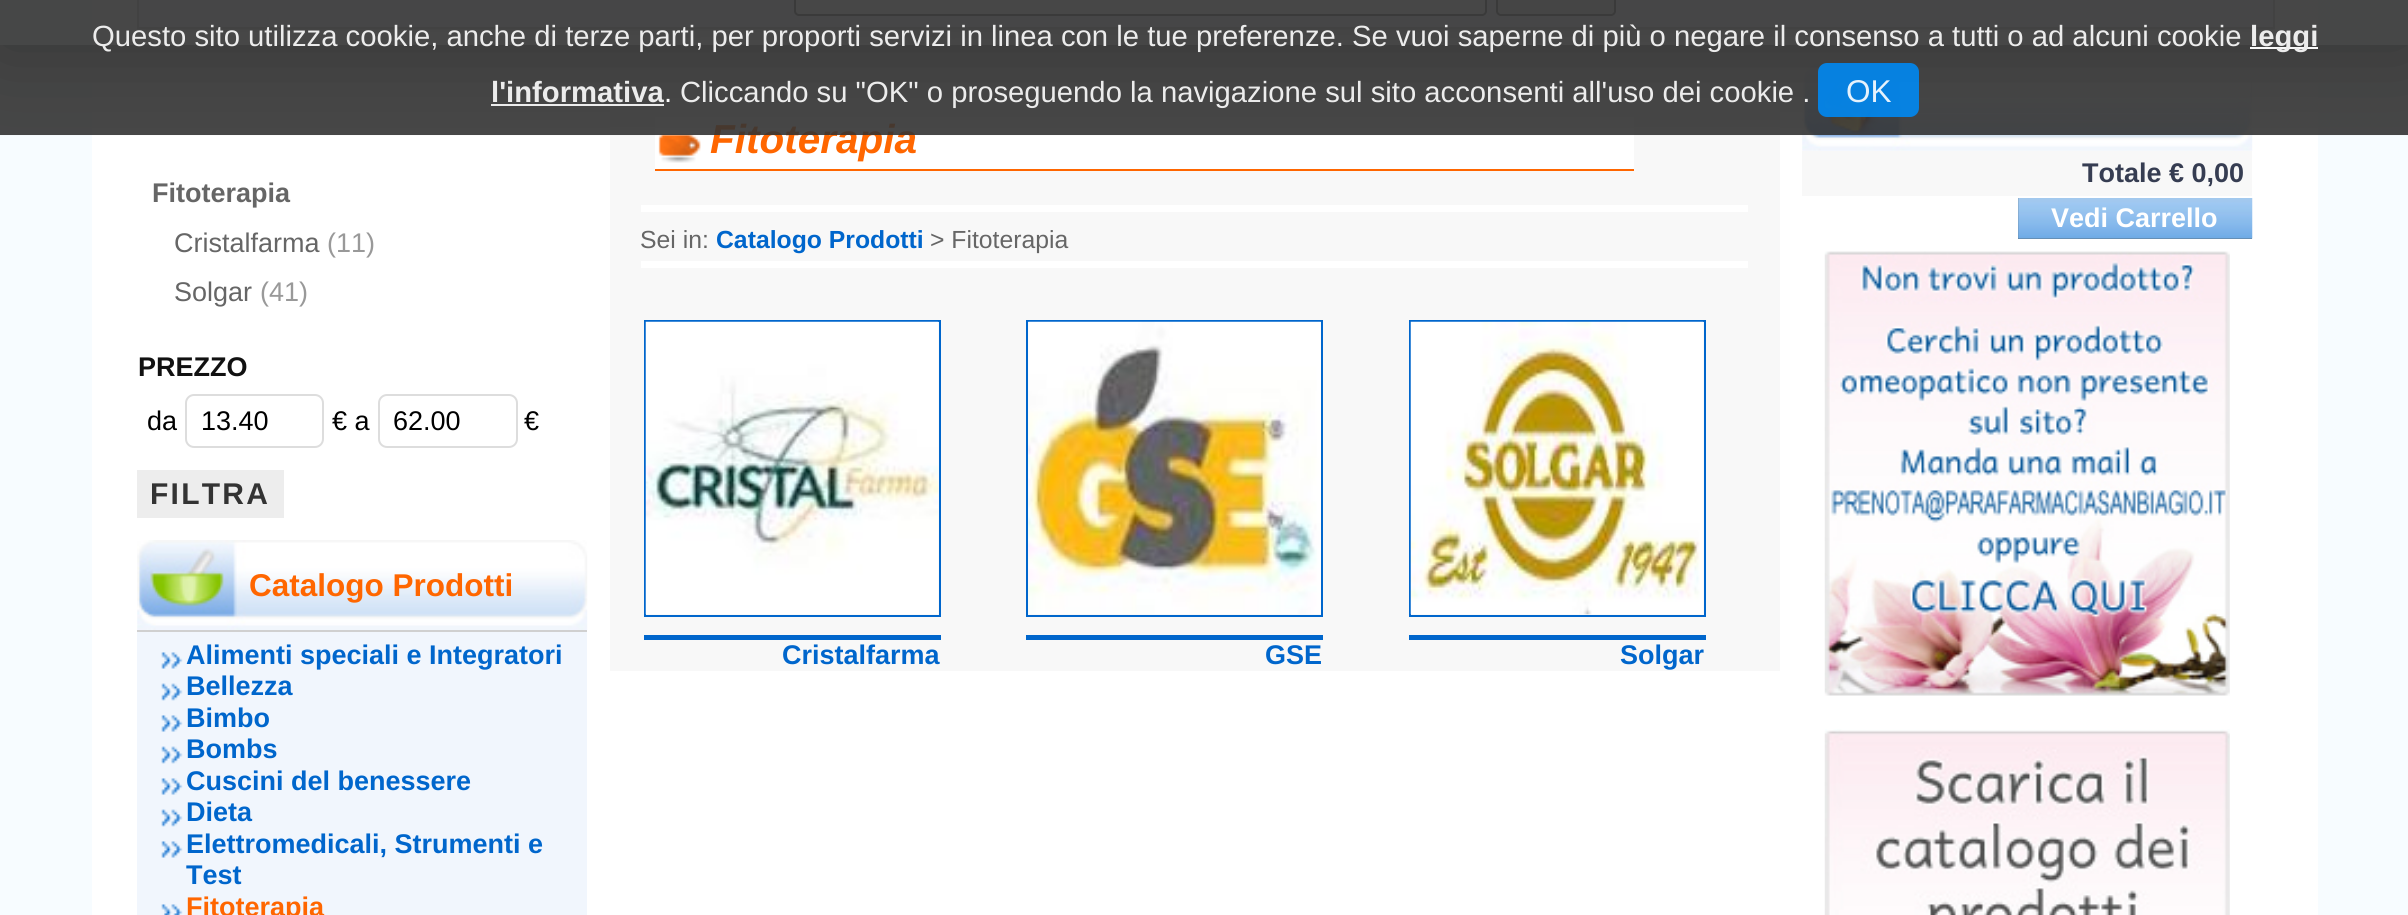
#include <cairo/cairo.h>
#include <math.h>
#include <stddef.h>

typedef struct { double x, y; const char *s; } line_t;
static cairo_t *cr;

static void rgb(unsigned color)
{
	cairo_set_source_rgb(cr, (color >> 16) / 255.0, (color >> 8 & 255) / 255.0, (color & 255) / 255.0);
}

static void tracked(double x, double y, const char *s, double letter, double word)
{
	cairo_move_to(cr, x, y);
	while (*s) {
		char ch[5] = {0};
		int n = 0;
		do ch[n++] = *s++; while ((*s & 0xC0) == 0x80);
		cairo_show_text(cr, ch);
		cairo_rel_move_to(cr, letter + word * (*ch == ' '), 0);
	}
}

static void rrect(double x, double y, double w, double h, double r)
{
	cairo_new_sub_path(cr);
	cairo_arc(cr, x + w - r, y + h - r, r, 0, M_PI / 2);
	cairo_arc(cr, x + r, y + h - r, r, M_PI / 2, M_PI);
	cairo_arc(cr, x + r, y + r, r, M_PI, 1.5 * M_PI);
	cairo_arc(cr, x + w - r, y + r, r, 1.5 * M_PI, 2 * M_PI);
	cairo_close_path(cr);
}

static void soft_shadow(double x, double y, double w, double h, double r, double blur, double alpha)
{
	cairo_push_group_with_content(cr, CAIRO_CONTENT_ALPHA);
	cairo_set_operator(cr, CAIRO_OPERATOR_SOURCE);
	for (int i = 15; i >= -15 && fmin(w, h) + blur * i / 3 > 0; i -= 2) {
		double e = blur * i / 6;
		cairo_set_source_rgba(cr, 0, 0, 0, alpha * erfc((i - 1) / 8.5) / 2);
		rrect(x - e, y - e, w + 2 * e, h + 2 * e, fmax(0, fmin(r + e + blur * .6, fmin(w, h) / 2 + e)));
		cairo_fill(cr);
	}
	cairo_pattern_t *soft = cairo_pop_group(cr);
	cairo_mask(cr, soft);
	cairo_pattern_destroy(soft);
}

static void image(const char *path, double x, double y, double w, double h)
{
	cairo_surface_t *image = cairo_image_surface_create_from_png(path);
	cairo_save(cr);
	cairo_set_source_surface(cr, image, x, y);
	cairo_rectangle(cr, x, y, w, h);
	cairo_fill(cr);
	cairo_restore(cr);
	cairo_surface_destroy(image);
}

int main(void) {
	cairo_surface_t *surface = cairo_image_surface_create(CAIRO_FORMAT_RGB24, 2408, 915);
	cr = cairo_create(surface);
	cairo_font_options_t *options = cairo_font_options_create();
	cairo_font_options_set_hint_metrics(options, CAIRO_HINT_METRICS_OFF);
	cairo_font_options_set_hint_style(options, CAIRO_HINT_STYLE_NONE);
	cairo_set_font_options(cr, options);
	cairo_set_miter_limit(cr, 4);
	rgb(0xf7fcff);
	cairo_paint(cr);
	rgb(0xffffff);
	cairo_rectangle(cr, 92, 0, 2226, 915);
	cairo_fill(cr);
	image("img/1.png", 137, 29, 2138, 17);
	rgb(0xf1f6fd);
	cairo_rectangle(cr, 138, -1, 2136, 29);
	cairo_fill_preserve(cr);
	rgb(0xcccccc);
	cairo_stroke(cr);
	rgb(0xffffff);
	rrect(795, -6, 691, 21, 4);
	cairo_fill_preserve(cr);
	rgb(0x767676);
	cairo_stroke(cr);
	rgb(0xefefef);
	rrect(1497, -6, 118, 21, 4);
	cairo_fill_preserve(cr);
	rgb(0x767676);
	cairo_stroke(cr);
	rgb(0xf8f8f8);
	cairo_rectangle(cr, 610, 61, 1170, 610);
	cairo_fill(cr);
	rgb(0xffffff);
	cairo_rectangle(cr, 655, 117, 979, 52);
	cairo_fill(cr);
	image("img/7.png", 658, 134, 43, 29);
	rgb(0xff6600);
	cairo_rectangle(cr, 655, 169, 979, 2);
	cairo_fill(cr);
	image("img/11.png", 1802, 61, 451, 90);
	rgb(0xf8f8f8);
	cairo_rectangle(cr, 1802, 151, 450, 45);
	cairo_fill(cr);
	cairo_save(cr);
	cairo_rectangle(cr, 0, 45, 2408, 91);
	cairo_clip(cr);
	rgb(0x444444);
	soft_shadow(0, 0, 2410, 45, 0, 45, 1);
	cairo_restore(cr);
	rrect(186, 395, 137, 52, 8);
	rgb(0xdddddd);
	cairo_stroke(cr);
	rrect(379, 395, 138, 52, 8);
	cairo_stroke(cr);
	rgb(0xededed);
	cairo_rectangle(cr, 137, 470, 147, 48);
	cairo_fill(cr);
	image("img/2.png", 137, 540, 451, 90);
	rgb(0xf1f6fd);
	cairo_rectangle(cr, 137, 632, 450, 283);
	cairo_fill(cr);
	rgb(0xd0d0d0);
	cairo_rectangle(cr, 137, 630, 450, 2);
	cairo_fill(cr);
	image("img/3.png", 161, 652, 22, 17);
	image("img/4.png", 161, 683, 22, 18);
	image("img/3.png", 161, 715, 22, 17);
	image("img/5.png", 161, 746, 22, 18);
	image("img/3.png", 161, 778, 22, 17);
	image("img/4.png", 161, 809, 22, 18);
	image("img/3.png", 161, 841, 22, 17);
	image("img/6.png", 161, 904, 22, 11);
	rgb(0xffffff);
	cairo_rectangle(cr, 641, 205, 1107, 7);
	cairo_fill(cr);
	cairo_rectangle(cr, 641, 261, 1107, 7);
	cairo_fill(cr);
	cairo_rectangle(cr, 645, 321, 295, 295);
	rgb(0x0066cc);
	cairo_stroke(cr);
	image("img/8.png", 645, 321, 294, 294);
	cairo_rectangle(cr, 644, 635, 297, 5);
	cairo_fill(cr);
	cairo_rectangle(cr, 1027, 321, 295, 295);
	cairo_stroke(cr);
	image("img/9.png", 1028, 321, 293, 293);
	cairo_rectangle(cr, 1026, 635, 297, 5);
	cairo_fill(cr);
	cairo_rectangle(cr, 1410, 321, 295, 295);
	cairo_stroke(cr);
	image("img/10.png", 1410, 321, 294, 294);
	cairo_rectangle(cr, 1409, 635, 297, 5);
	cairo_fill(cr);
	rgb(0x5c7487);
	cairo_rectangle(cr, 2018, 198, 234, 41);
	cairo_fill(cr);
	image("img/12.png", 2018, 198, 235, 41);
	image("img/13.png", 1824, 251, 406, 445);
	image("img/14.png", 1824, 729, 406, 186);
	cairo_select_font_face(cr, "Liberation Sans", CAIRO_FONT_SLANT_NORMAL, CAIRO_FONT_WEIGHT_BOLD);
	cairo_set_font_size(cr, 27);
	rgb(0x666666);
	cairo_move_to(cr, 152, 202);
	cairo_show_text(cr, "Fitoterapia");
	cairo_select_font_face(cr, "Liberation Sans", CAIRO_FONT_SLANT_NORMAL, CAIRO_FONT_WEIGHT_NORMAL);
	cairo_move_to(cr, 174, 252);
	cairo_show_text(cr, "Cristalfarma");
	rgb(0x999999);
	cairo_move_to(cr, 327, 252);
	cairo_show_text(cr, "(11)");
	rgb(0x666666);
	cairo_move_to(cr, 174, 301);
	cairo_show_text(cr, "Solgar");
	rgb(0x999999);
	cairo_move_to(cr, 260, 301);
	cairo_show_text(cr, "(41)");
	cairo_select_font_face(cr, "Liberation Sans", CAIRO_FONT_SLANT_NORMAL, CAIRO_FONT_WEIGHT_BOLD);
	rgb(0x111111);
	cairo_move_to(cr, 138, 376);
	cairo_show_text(cr, "PREZZO");
	cairo_select_font_face(cr, "Liberation Sans", CAIRO_FONT_SLANT_NORMAL, CAIRO_FONT_WEIGHT_NORMAL);
	rgb(0x000000);
	{
		static const line_t items[] = {
			{147, 430, "da"},
			{201, 430, "13.40"},
			{332, 430, "€ a"},
			{393, 430, "62.00"},
			{524, 430, "€"},
		};
		for (size_t i = 0; i < sizeof items / sizeof *items; i++) {
			cairo_move_to(cr, items[i].x, items[i].y);
			cairo_show_text(cr, items[i].s);
		}
	}
	cairo_select_font_face(cr, "Liberation Sans", CAIRO_FONT_SLANT_NORMAL, CAIRO_FONT_WEIGHT_BOLD);
	cairo_set_font_size(cr, 30);
	rgb(0x333333);
	tracked(150, 504, "FILTRA", 2.25, 0);
	cairo_set_font_size(cr, 31.5);
	rgb(0xff6600);
	cairo_move_to(cr, 249, 596);
	cairo_show_text(cr, "Catalogo Prodotti");
	cairo_set_font_size(cr, 27);
	rgb(0x0066cc);
	{
		static const line_t items[] = {
			{186, 664, "Alimenti speciali e Integratori"},
			{186, 695, "Bellezza"},
			{186, 727, "Bimbo"},
			{186, 758, "Bombs"},
			{186, 790, "Cuscini del benessere"},
			{186, 821, "Dieta"},
			{186, 853, "Elettromedicali, Strumenti e"},
			{186, 884, "Test"},
		};
		for (size_t i = 0; i < sizeof items / sizeof *items; i++) {
			cairo_move_to(cr, items[i].x, items[i].y);
			cairo_show_text(cr, items[i].s);
		}
	}
	rgb(0xff6600);
	cairo_move_to(cr, 186, 916);
	cairo_show_text(cr, "Fitoterapia");
	cairo_select_font_face(cr, "Liberation Sans", CAIRO_FONT_SLANT_ITALIC, CAIRO_FONT_WEIGHT_BOLD);
	cairo_set_font_size(cr, 40.5);
	cairo_move_to(cr, 710, 153);
	cairo_show_text(cr, "Fitoterapia");
	cairo_set_source_rgba(cr, 0.2, 0.2, 0.2, 0.9);
	cairo_rectangle(cr, 0, 0, 2408, 135);
	cairo_fill(cr);
	cairo_set_source_rgba(cr, 0, 0.537, 0.949, 0.9);
	rrect(1818, 63, 101, 54, 9);
	cairo_fill(cr);
	cairo_select_font_face(cr, "Liberation Sans", CAIRO_FONT_SLANT_NORMAL, CAIRO_FONT_WEIGHT_NORMAL);
	cairo_set_font_size(cr, 31.5);
	rgb(0xe6f2fc);
	cairo_move_to(cr, 1846, 102);
	cairo_show_text(cr, "OK");
	cairo_set_font_size(cr, 29.25);
	rgb(0xececec);
	cairo_move_to(cr, 680, 102);
	cairo_show_text(cr, "Cliccando su \"OK\" o proseguendo la navigazione sul sito acconsenti all'uso dei cookie .");
	rgb(0xffffff);
	cairo_move_to(cr, 664, 102);
	cairo_show_text(cr, ".");
	cairo_select_font_face(cr, "Liberation Sans", CAIRO_FONT_SLANT_NORMAL, CAIRO_FONT_WEIGHT_BOLD);
	rgb(0xececec);
	cairo_move_to(cr, 491, 102);
	cairo_show_text(cr, "l'informativa");
	cairo_rectangle(cr, 491, 104, 173, 2);
	cairo_fill(cr);
	rgb(0xf9f9f9);
	cairo_rectangle(cr, 2250, 47, 68, 2);
	cairo_fill(cr);
	rgb(0xececec);
	cairo_move_to(cr, 2250, 46);
	cairo_show_text(cr, "leggi");
	cairo_select_font_face(cr, "Liberation Sans", CAIRO_FONT_SLANT_NORMAL, CAIRO_FONT_WEIGHT_NORMAL);
	cairo_move_to(cr, 92, 46);
	cairo_show_text(cr, "Questo sito utilizza cookie, anche di terze parti, per proporti servizi in linea con le tue preferenze. Se vuoi saperne di più o negare il consenso a tutti o ad alcuni cookie");
	cairo_set_font_size(cr, 24.75);
	rgb(0x666666);
	cairo_move_to(cr, 640, 248);
	cairo_show_text(cr, "Sei in:");
	cairo_select_font_face(cr, "Liberation Sans", CAIRO_FONT_SLANT_NORMAL, CAIRO_FONT_WEIGHT_BOLD);
	rgb(0x0066cc);
	cairo_move_to(cr, 716, 248);
	cairo_show_text(cr, "Catalogo Prodotti");
	cairo_select_font_face(cr, "Liberation Sans", CAIRO_FONT_SLANT_NORMAL, CAIRO_FONT_WEIGHT_NORMAL);
	rgb(0x666666);
	cairo_move_to(cr, 930, 248);
	cairo_show_text(cr, "> Fitoterapia");
	cairo_select_font_face(cr, "Liberation Sans", CAIRO_FONT_SLANT_NORMAL, CAIRO_FONT_WEIGHT_BOLD);
	cairo_set_font_size(cr, 27);
	rgb(0x0066cc);
	{
		static const line_t items[] = {
			{782, 664, "Cristalfarma"},
			{1265, 664, "GSE"},
			{1620, 664, "Solgar"},
		};
		for (size_t i = 0; i < sizeof items / sizeof *items; i++) {
			cairo_move_to(cr, items[i].x, items[i].y);
			cairo_show_text(cr, items[i].s);
		}
	}
	rgb(0x363d52);
	cairo_move_to(cr, 2082, 182);
	cairo_show_text(cr, "Totale € 0,00");
	rgb(0xffffff);
	cairo_move_to(cr, 2051, 227);
	cairo_show_text(cr, "Vedi Carrello");
	cairo_surface_write_to_png(surface, "page.png");
	cairo_font_options_destroy(options);
	cairo_destroy(cr);
	cairo_surface_destroy(surface);
	return 0;
}
